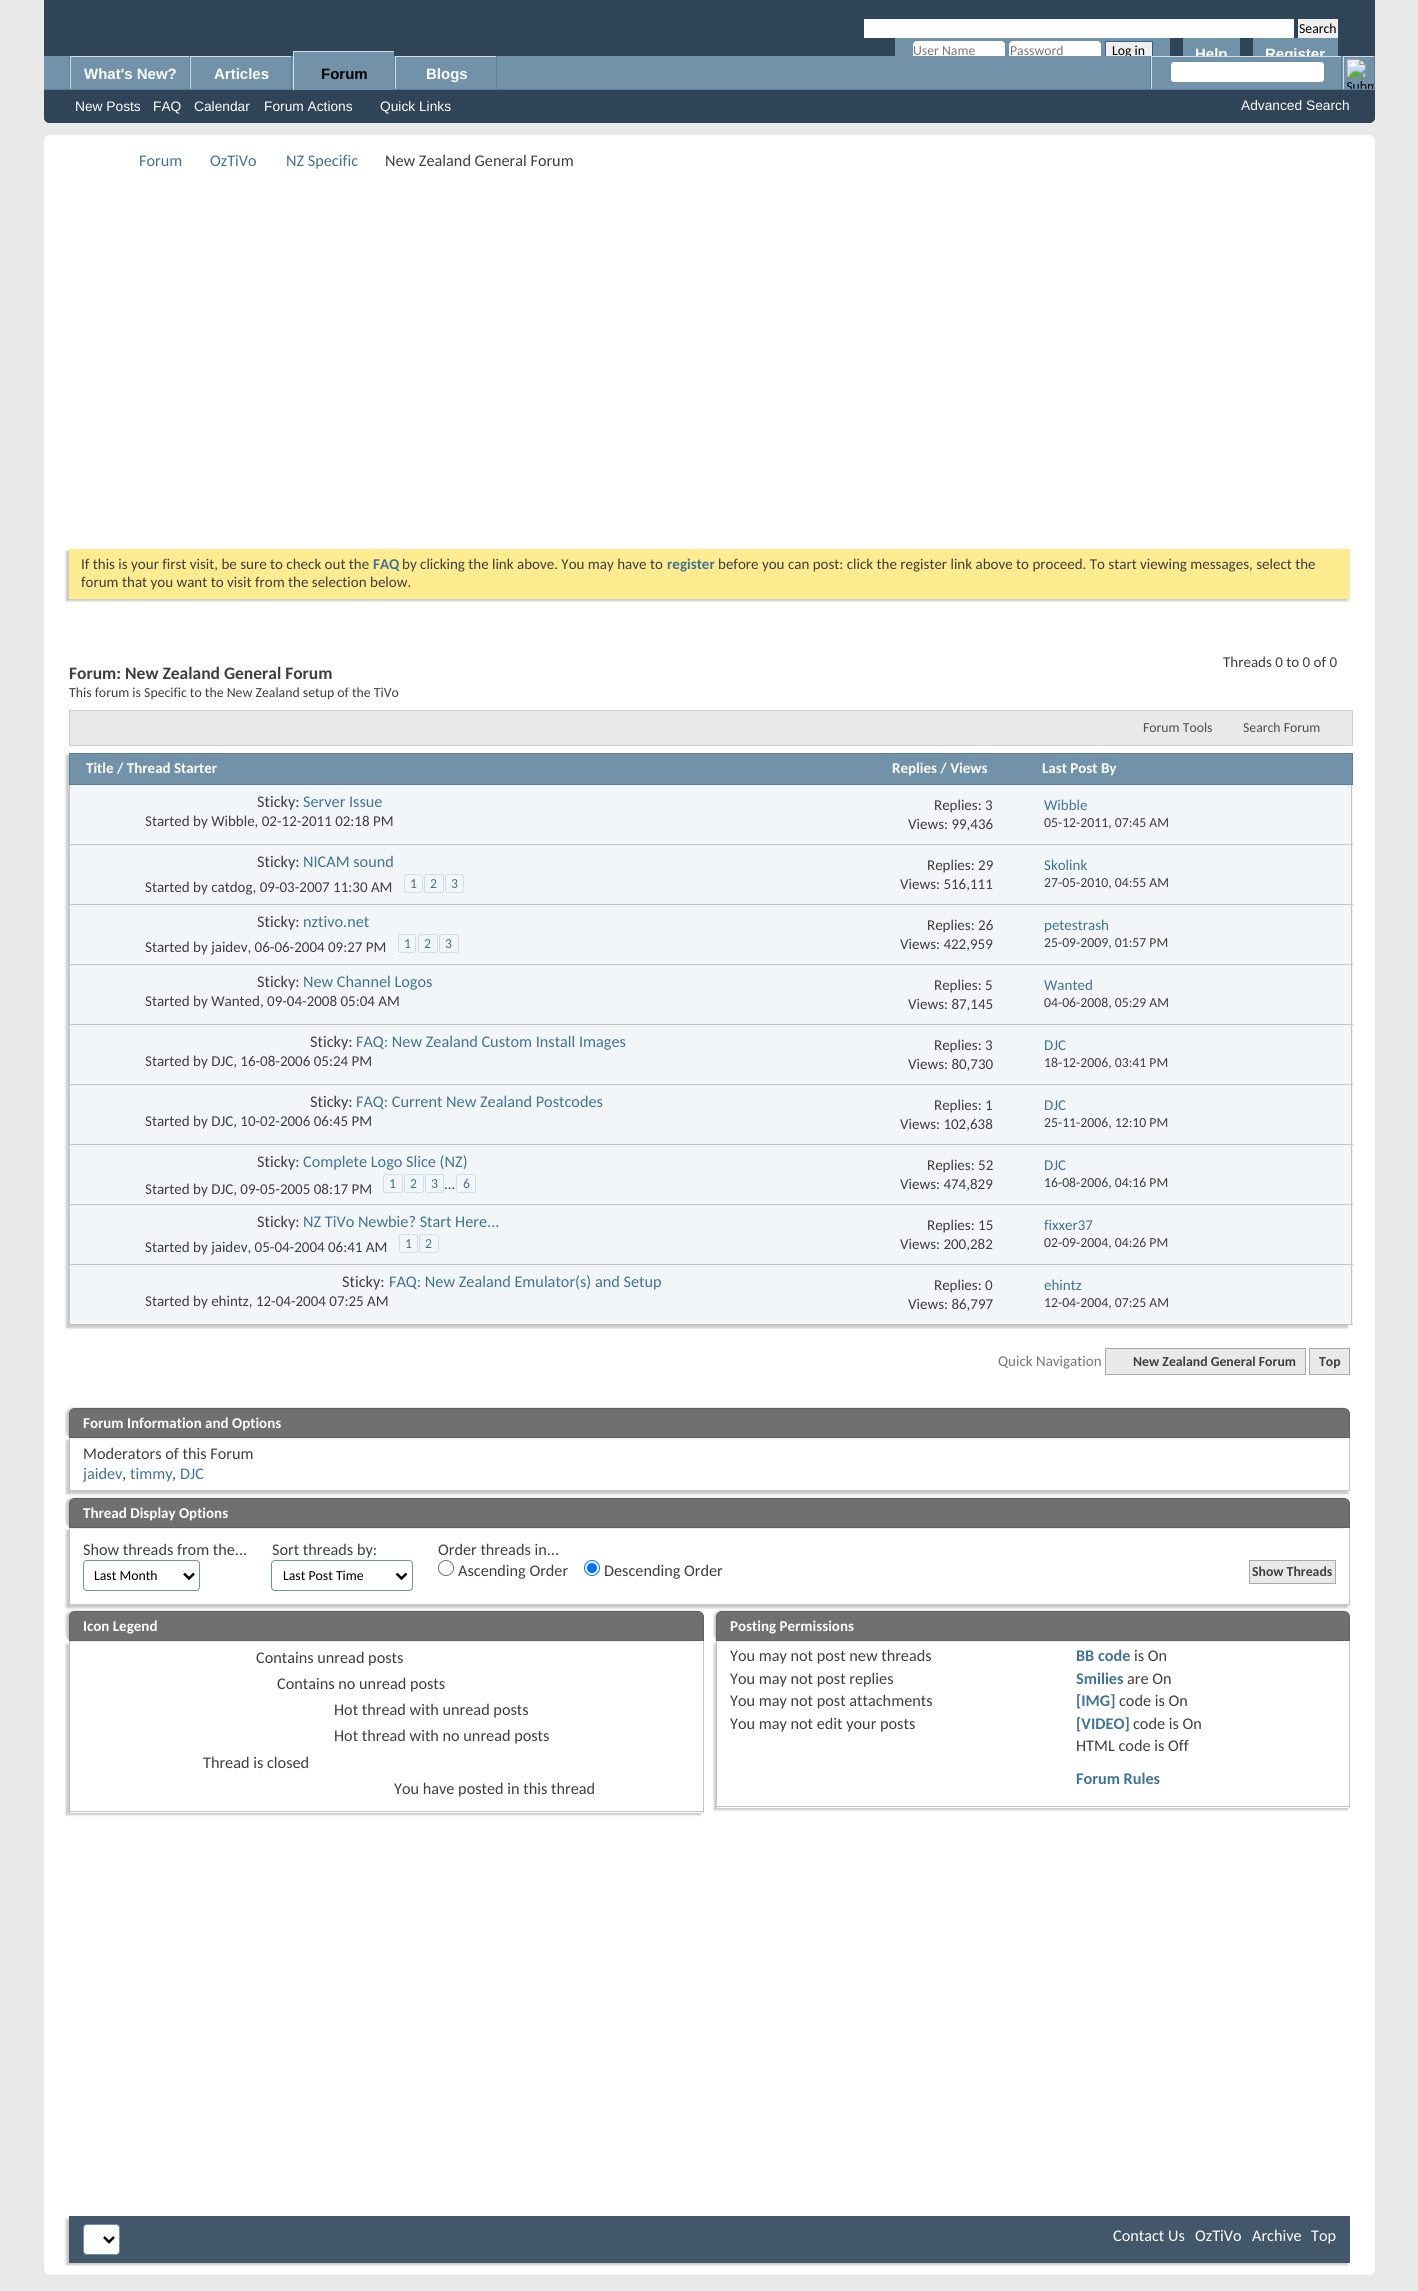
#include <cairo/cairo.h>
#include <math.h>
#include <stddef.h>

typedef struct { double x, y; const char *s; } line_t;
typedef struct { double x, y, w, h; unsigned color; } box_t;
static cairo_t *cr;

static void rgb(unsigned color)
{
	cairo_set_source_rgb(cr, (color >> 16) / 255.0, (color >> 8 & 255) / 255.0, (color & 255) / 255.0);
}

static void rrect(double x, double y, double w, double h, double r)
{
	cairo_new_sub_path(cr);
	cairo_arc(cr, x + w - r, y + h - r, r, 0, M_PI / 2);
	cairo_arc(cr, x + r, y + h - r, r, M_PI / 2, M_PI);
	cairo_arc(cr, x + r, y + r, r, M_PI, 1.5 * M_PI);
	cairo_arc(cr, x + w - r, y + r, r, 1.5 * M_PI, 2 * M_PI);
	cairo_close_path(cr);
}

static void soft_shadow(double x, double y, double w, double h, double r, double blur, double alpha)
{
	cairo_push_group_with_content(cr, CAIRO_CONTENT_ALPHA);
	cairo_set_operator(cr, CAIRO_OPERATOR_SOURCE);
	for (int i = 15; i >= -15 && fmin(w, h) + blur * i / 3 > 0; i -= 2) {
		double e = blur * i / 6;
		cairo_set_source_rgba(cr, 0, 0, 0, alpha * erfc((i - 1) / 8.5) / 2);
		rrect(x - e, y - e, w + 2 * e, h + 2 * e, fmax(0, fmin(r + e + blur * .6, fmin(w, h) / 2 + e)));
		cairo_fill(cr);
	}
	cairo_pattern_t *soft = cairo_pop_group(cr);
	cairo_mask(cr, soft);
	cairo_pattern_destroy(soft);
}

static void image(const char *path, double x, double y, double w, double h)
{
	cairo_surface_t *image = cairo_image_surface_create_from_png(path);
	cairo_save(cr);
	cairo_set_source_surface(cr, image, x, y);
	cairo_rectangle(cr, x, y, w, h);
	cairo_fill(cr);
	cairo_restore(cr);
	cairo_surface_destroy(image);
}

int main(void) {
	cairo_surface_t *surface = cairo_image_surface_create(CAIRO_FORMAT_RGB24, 1418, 2291);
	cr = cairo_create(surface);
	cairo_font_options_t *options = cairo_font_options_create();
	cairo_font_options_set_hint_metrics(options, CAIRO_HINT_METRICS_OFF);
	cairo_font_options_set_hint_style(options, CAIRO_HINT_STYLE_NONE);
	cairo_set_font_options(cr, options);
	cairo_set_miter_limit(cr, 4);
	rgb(0xe9e9e9);
	cairo_paint(cr);
	rgb(0x2f4456);
	cairo_new_path(cr);
	cairo_move_to(cr, 44, 0);
	cairo_line_to(cr, 1375, 0);
	cairo_line_to(cr, 1375, 117);
	cairo_curve_to(cr, 1375, 120.5, 1372.5, 123, 1369, 123);
	cairo_line_to(cr, 50, 123);
	cairo_curve_to(cr, 46.5, 123, 44, 120.5, 44, 117);
	cairo_close_path(cr);
	cairo_fill(cr);
	{
		static const box_t items[] = {
			{864, 19, 430, 19, 0xffffff},
			{1298, 19, 40, 19, 0xefefef},
			{895, 38, 275, 18, 0x7192a8},
		};
		for (size_t i = 0; i < sizeof items / sizeof *items; i++) {
			rgb(items[i].color);
			cairo_rectangle(cr, items[i].x, items[i].y, items[i].w, items[i].h);
			cairo_fill(cr);
		}
	}
	rgb(0xffffff);
	rrect(913, 41, 92, 19, 4);
	cairo_fill(cr);
	rrect(1009, 41, 92, 19, 4);
	cairo_fill(cr);
	rgb(0xefefef);
	cairo_rectangle(cr, 1106, 42, 46, 14);
	cairo_fill(cr);
	cairo_rectangle(cr, 1105.5, 41.5, 47, 18);
	rgb(0x415d8d);
	cairo_set_line_width(cr, 1);
	cairo_stroke(cr);
	{
		static const box_t items[] = {
			{1183, 38, 57, 18, 0x7192a8},
			{1253, 38, 85, 18, 0x7192a8},
			{293, 51, 101, 1, 0xcedfeb},
		};
		for (size_t i = 0; i < sizeof items / sizeof *items; i++) {
			rgb(items[i].color);
			cairo_rectangle(cr, items[i].x, items[i].y, items[i].w, items[i].h);
			cairo_fill(cr);
		}
	}
	rgb(0xffffff);
	rrect(44, 135, 1331, 2140, 6);
	cairo_fill(cr);
	rgb(0xc8c8c8);
	soft_shadow(66, 551, 1282, 50, 0, 1, 1);
	rgb(0xffeb90);
	cairo_rectangle(cr, 69, 549, 1281, 50);
	cairo_fill(cr);
	rgb(0xe9e9e9);
	cairo_rectangle(cr, 69.5, 710.5, 1283, 35);
	cairo_fill_preserve(cr);
	rgb(0xcecece);
	cairo_stroke(cr);
	rgb(0xc8c8c8);
	soft_shadow(66, 755, 1284, 33, 0, 1, 1);
	rgb(0x7192a8);
	cairo_rectangle(cr, 69.5, 753.5, 1283, 31);
	cairo_fill_preserve(cr);
	rgb(0x5a7f97);
	cairo_stroke(cr);
	rgb(0xc8c8c8);
	soft_shadow(66, 788, 1282, 60, 0, 1, 1);
	{
		static const box_t items[] = {
			{70, 785, 1283, 59, 0xf2f6f8},
			{1351, 785, 1, 60, 0xc4c4c4},
			{69, 844, 1284, 1, 0xc4c4c4},
			{69, 785, 1, 60, 0xc4c4c4},
		};
		for (size_t i = 0; i < sizeof items / sizeof *items; i++) {
			rgb(items[i].color);
			cairo_rectangle(cr, items[i].x, items[i].y, items[i].w, items[i].h);
			cairo_fill(cr);
		}
	}
	rgb(0xc8c8c8);
	soft_shadow(66, 848, 1282, 60, 0, 1, 1);
	{
		static const box_t items[] = {
			{70, 845, 1283, 59, 0xf2f6f8},
			{1351, 845, 1, 60, 0xc4c4c4},
			{69, 904, 1284, 1, 0xc4c4c4},
			{69, 845, 1, 60, 0xc4c4c4},
		};
		for (size_t i = 0; i < sizeof items / sizeof *items; i++) {
			rgb(items[i].color);
			cairo_rectangle(cr, items[i].x, items[i].y, items[i].w, items[i].h);
			cairo_fill(cr);
		}
	}
	rrect(404.5, 874.5, 18, 18, 2);
	rgb(0xcedfeb);
	cairo_stroke(cr);
	rrect(424.5, 874.5, 19, 18, 2);
	cairo_stroke(cr);
	rrect(445.5, 874.5, 18, 18, 2);
	cairo_stroke(cr);
	rgb(0xc8c8c8);
	soft_shadow(66, 908, 1282, 60, 0, 1, 1);
	{
		static const box_t items[] = {
			{70, 905, 1283, 59, 0xf2f6f8},
			{1351, 905, 1, 60, 0xc4c4c4},
			{69, 964, 1284, 1, 0xc4c4c4},
			{69, 905, 1, 60, 0xc4c4c4},
		};
		for (size_t i = 0; i < sizeof items / sizeof *items; i++) {
			rgb(items[i].color);
			cairo_rectangle(cr, items[i].x, items[i].y, items[i].w, items[i].h);
			cairo_fill(cr);
		}
	}
	rrect(398.5, 934.5, 17, 18, 2);
	rgb(0xcedfeb);
	cairo_stroke(cr);
	rrect(418.5, 934.5, 19, 18, 2);
	cairo_stroke(cr);
	rrect(439.5, 934.5, 19, 18, 2);
	cairo_stroke(cr);
	rgb(0xc8c8c8);
	soft_shadow(66, 968, 1282, 60, 0, 1, 1);
	{
		static const box_t items[] = {
			{70, 965, 1283, 59, 0xf2f6f8},
			{1351, 965, 1, 60, 0xc4c4c4},
			{69, 1024, 1284, 1, 0xc4c4c4},
			{69, 965, 1, 60, 0xc4c4c4},
		};
		for (size_t i = 0; i < sizeof items / sizeof *items; i++) {
			rgb(items[i].color);
			cairo_rectangle(cr, items[i].x, items[i].y, items[i].w, items[i].h);
			cairo_fill(cr);
		}
	}
	rgb(0xc8c8c8);
	soft_shadow(66, 1028, 1282, 60, 0, 1, 1);
	{
		static const box_t items[] = {
			{70, 1025, 1283, 59, 0xf2f6f8},
			{1351, 1025, 1, 60, 0xc4c4c4},
			{69, 1084, 1284, 1, 0xc4c4c4},
			{69, 1025, 1, 60, 0xc4c4c4},
		};
		for (size_t i = 0; i < sizeof items / sizeof *items; i++) {
			rgb(items[i].color);
			cairo_rectangle(cr, items[i].x, items[i].y, items[i].w, items[i].h);
			cairo_fill(cr);
		}
	}
	rgb(0xc8c8c8);
	soft_shadow(66, 1088, 1282, 60, 0, 1, 1);
	{
		static const box_t items[] = {
			{70, 1085, 1283, 59, 0xf2f6f8},
			{1351, 1085, 1, 60, 0xc4c4c4},
			{69, 1144, 1284, 1, 0xc4c4c4},
			{69, 1085, 1, 60, 0xc4c4c4},
		};
		for (size_t i = 0; i < sizeof items / sizeof *items; i++) {
			rgb(items[i].color);
			cairo_rectangle(cr, items[i].x, items[i].y, items[i].w, items[i].h);
			cairo_fill(cr);
		}
	}
	rgb(0xc8c8c8);
	soft_shadow(66, 1148, 1282, 60, 0, 1, 1);
	{
		static const box_t items[] = {
			{70, 1145, 1283, 59, 0xf2f6f8},
			{1351, 1145, 1, 60, 0xc4c4c4},
			{69, 1204, 1284, 1, 0xc4c4c4},
			{69, 1145, 1, 60, 0xc4c4c4},
		};
		for (size_t i = 0; i < sizeof items / sizeof *items; i++) {
			rgb(items[i].color);
			cairo_rectangle(cr, items[i].x, items[i].y, items[i].w, items[i].h);
			cairo_fill(cr);
		}
	}
	rrect(383.5, 1174.5, 19, 18, 2);
	rgb(0xcedfeb);
	cairo_stroke(cr);
	rrect(404.5, 1174.5, 19, 18, 2);
	cairo_stroke(cr);
	rrect(425.5, 1174.5, 18, 18, 2);
	cairo_stroke(cr);
	rrect(456.5, 1174.5, 19, 18, 2);
	cairo_stroke(cr);
	rgb(0xc8c8c8);
	soft_shadow(66, 1208, 1282, 60, 0, 1, 1);
	{
		static const box_t items[] = {
			{70, 1205, 1283, 59, 0xf2f6f8},
			{1351, 1205, 1, 60, 0xc4c4c4},
			{69, 1264, 1284, 1, 0xc4c4c4},
			{69, 1205, 1, 60, 0xc4c4c4},
		};
		for (size_t i = 0; i < sizeof items / sizeof *items; i++) {
			rgb(items[i].color);
			cairo_rectangle(cr, items[i].x, items[i].y, items[i].w, items[i].h);
			cairo_fill(cr);
		}
	}
	rrect(399.5, 1234.5, 18, 18, 2);
	rgb(0xcedfeb);
	cairo_stroke(cr);
	rrect(419.5, 1234.5, 19, 18, 2);
	cairo_stroke(cr);
	rgb(0xc8c8c8);
	soft_shadow(66, 1268, 1282, 60, 0, 1, 1);
	{
		static const box_t items[] = {
			{70, 1265, 1283, 59, 0xf2f6f8},
			{1351, 1265, 1, 60, 0xc4c4c4},
			{69, 1324, 1284, 1, 0xc4c4c4},
			{69, 1265, 1, 60, 0xc4c4c4},
		};
		for (size_t i = 0; i < sizeof items / sizeof *items; i++) {
			rgb(items[i].color);
			cairo_rectangle(cr, items[i].x, items[i].y, items[i].w, items[i].h);
			cairo_fill(cr);
		}
	}
	rgb(0xe9e9e9);
	cairo_rectangle(cr, 1105.5, 1348.5, 200, 26);
	cairo_fill_preserve(cr);
	rgb(0xa8a8a8);
	cairo_stroke(cr);
	rgb(0xe9e9e9);
	cairo_rectangle(cr, 1309.5, 1348.5, 40, 26);
	cairo_fill_preserve(cr);
	rgb(0xa8a8a8);
	cairo_stroke(cr);
	cairo_save(cr);
	cairo_set_fill_rule(cr, CAIRO_FILL_RULE_EVEN_ODD);
	cairo_new_path(cr);
	cairo_move_to(cr, 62, 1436);
	cairo_line_to(cr, 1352, 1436);
	cairo_line_to(cr, 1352, 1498);
	cairo_line_to(cr, 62, 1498);
	cairo_close_path(cr);
	cairo_move_to(cr, 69, 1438);
	cairo_line_to(cr, 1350, 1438);
	cairo_line_to(cr, 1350, 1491);
	cairo_line_to(cr, 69, 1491);
	cairo_close_path(cr);
	cairo_clip(cr);
	rgb(0xc8c8c8);
	soft_shadow(66, 1440, 1282, 54, 0, 1, 1);
	cairo_restore(cr);
	{
		static const box_t items[] = {
			{1349, 1438, 1, 53, 0xc4c4c4},
			{69, 1490, 1281, 1, 0xc4c4c4},
			{69, 1438, 1, 53, 0xc4c4c4},
		};
		for (size_t i = 0; i < sizeof items / sizeof *items; i++) {
			rgb(items[i].color);
			cairo_rectangle(cr, items[i].x, items[i].y, items[i].w, items[i].h);
			cairo_fill(cr);
		}
	}
	rgb(0xc8c8c8);
	soft_shadow(66, 1408, 1282, 30, 6, 1, 1);
	rgb(0x707070);
	cairo_new_path(cr);
	cairo_move_to(cr, 75, 1408.5);
	cairo_line_to(cr, 1344, 1408.5);
	cairo_curve_to(cr, 1347, 1408.5, 1349.5, 1411, 1349.5, 1414);
	cairo_line_to(cr, 1349.5, 1437.5);
	cairo_line_to(cr, 69.5, 1437.5);
	cairo_line_to(cr, 69.5, 1414);
	cairo_curve_to(cr, 69.5, 1411, 72, 1408.5, 75, 1408.5);
	cairo_close_path(cr);
	cairo_fill_preserve(cr);
	rgb(0x606060);
	cairo_stroke(cr);
	cairo_save(cr);
	cairo_set_fill_rule(cr, CAIRO_FILL_RULE_EVEN_ODD);
	cairo_new_path(cr);
	cairo_move_to(cr, 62, 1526);
	cairo_line_to(cr, 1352, 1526);
	cairo_line_to(cr, 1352, 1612);
	cairo_line_to(cr, 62, 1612);
	cairo_close_path(cr);
	cairo_move_to(cr, 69, 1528);
	cairo_line_to(cr, 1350, 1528);
	cairo_line_to(cr, 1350, 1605);
	cairo_line_to(cr, 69, 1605);
	cairo_close_path(cr);
	cairo_clip(cr);
	rgb(0xc8c8c8);
	soft_shadow(66, 1530, 1282, 78, 0, 1, 1);
	cairo_restore(cr);
	{
		static const box_t items[] = {
			{1349, 1528, 1, 77, 0xc4c4c4},
			{69, 1604, 1281, 1, 0xc4c4c4},
			{69, 1528, 1, 77, 0xc4c4c4},
		};
		for (size_t i = 0; i < sizeof items / sizeof *items; i++) {
			rgb(items[i].color);
			cairo_rectangle(cr, items[i].x, items[i].y, items[i].w, items[i].h);
			cairo_fill(cr);
		}
	}
	rgb(0xc8c8c8);
	soft_shadow(66, 1498, 1282, 30, 6, 1, 1);
	rgb(0x707070);
	cairo_new_path(cr);
	cairo_move_to(cr, 75, 1498.5);
	cairo_line_to(cr, 1344, 1498.5);
	cairo_curve_to(cr, 1347, 1498.5, 1349.5, 1501, 1349.5, 1504);
	cairo_line_to(cr, 1349.5, 1527.5);
	cairo_line_to(cr, 69.5, 1527.5);
	cairo_line_to(cr, 69.5, 1504);
	cairo_curve_to(cr, 69.5, 1501, 72, 1498.5, 75, 1498.5);
	cairo_close_path(cr);
	cairo_fill_preserve(cr);
	rgb(0x606060);
	cairo_stroke(cr);
	rrect(83.5, 1560.5, 116, 30, 3.5);
	rgb(0x6b91ab);
	cairo_stroke(cr);
	cairo_new_path(cr);
	cairo_move_to(cr, 184, 1573.5);
	cairo_line_to(cr, 189, 1578.5);
	cairo_line_to(cr, 194, 1573.5);
	rgb(0x000000);
	cairo_set_line_width(cr, 2.5);
	cairo_stroke(cr);
	rrect(271.5, 1560.5, 141, 30, 3.5);
	rgb(0x6b91ab);
	cairo_set_line_width(cr, 1);
	cairo_stroke(cr);
	cairo_new_path(cr);
	cairo_move_to(cr, 396.5, 1573.5);
	cairo_line_to(cr, 401.5, 1578.5);
	cairo_line_to(cr, 406.5, 1573.5);
	rgb(0x000000);
	cairo_set_line_width(cr, 2.5);
	cairo_stroke(cr);
	cairo_arc(cr, 446, 1568, 7.5, 0, 2 * M_PI);
	rgb(0x767676);
	cairo_set_line_width(cr, 1);
	cairo_stroke(cr);
	cairo_arc(cr, 592, 1568, 7.5, 0, 2 * M_PI);
	rgb(0x0075ff);
	cairo_stroke(cr);
	cairo_arc(cr, 592, 1568, 5, 0, 2 * M_PI);
	cairo_fill(cr);
	rgb(0xe9e9e9);
	cairo_rectangle(cr, 1249.5, 1560.5, 86, 23);
	cairo_fill_preserve(cr);
	rgb(0xa8a8a8);
	cairo_stroke(cr);
	rgb(0xc8c8c8);
	soft_shadow(66, 1644, 635, 171, 0, 1, 1);
	{
		static const box_t items[] = {
			{70, 1642, 633, 171, 0xffffff},
			{703, 1641, 1, 172, 0xc4c4c4},
			{69, 1811, 635, 1, 0xc4c4c4},
			{69, 1641, 1, 172, 0xc4c4c4},
		};
		for (size_t i = 0; i < sizeof items / sizeof *items; i++) {
			rgb(items[i].color);
			cairo_rectangle(cr, items[i].x, items[i].y, items[i].w, items[i].h);
			cairo_fill(cr);
		}
	}
	rgb(0xc8c8c8);
	soft_shadow(66, 1611, 635, 30, 6, 1, 1);
	rgb(0x707070);
	cairo_new_path(cr);
	cairo_move_to(cr, 75, 1611.5);
	cairo_line_to(cr, 698, 1611.5);
	cairo_curve_to(cr, 701, 1611.5, 703.5, 1614, 703.5, 1617);
	cairo_line_to(cr, 703.5, 1640.5);
	cairo_line_to(cr, 69.5, 1640.5);
	cairo_line_to(cr, 69.5, 1617);
	cairo_curve_to(cr, 69.5, 1614, 72, 1611.5, 75, 1611.5);
	cairo_close_path(cr);
	cairo_fill_preserve(cr);
	rgb(0x606060);
	cairo_stroke(cr);
	rgb(0xc8c8c8);
	soft_shadow(714, 1644, 634, 166, 0, 1, 1);
	{
		static const box_t items[] = {
			{717, 1642, 632, 166, 0xffffff},
			{1349, 1641, 1, 167, 0xc4c4c4},
			{716, 1806, 634, 1, 0xc4c4c4},
			{716, 1641, 1, 167, 0xc4c4c4},
		};
		for (size_t i = 0; i < sizeof items / sizeof *items; i++) {
			rgb(items[i].color);
			cairo_rectangle(cr, items[i].x, items[i].y, items[i].w, items[i].h);
			cairo_fill(cr);
		}
	}
	rgb(0xc8c8c8);
	soft_shadow(714, 1611, 634, 30, 6, 1, 1);
	rgb(0x707070);
	cairo_new_path(cr);
	cairo_move_to(cr, 722, 1611.5);
	cairo_line_to(cr, 1344, 1611.5);
	cairo_curve_to(cr, 1347, 1611.5, 1349.5, 1614, 1349.5, 1617);
	cairo_line_to(cr, 1349.5, 1640.5);
	cairo_line_to(cr, 716.5, 1640.5);
	cairo_line_to(cr, 716.5, 1617);
	cairo_curve_to(cr, 716.5, 1614, 719, 1611.5, 722, 1611.5);
	cairo_close_path(cr);
	cairo_fill_preserve(cr);
	rgb(0x606060);
	cairo_stroke(cr);
	rgb(0xc8c8c8);
	soft_shadow(66, 2219, 1282, 46, 0, 1, 1);
	rgb(0x425769);
	cairo_rectangle(cr, 69, 2216, 1281, 47);
	cairo_fill(cr);
	rgb(0xffffff);
	rrect(83.5, 2224.5, 36, 30, 3.5);
	cairo_fill_preserve(cr);
	rgb(0x6b91ab);
	cairo_stroke(cr);
	cairo_new_path(cr);
	cairo_move_to(cr, 104, 2237);
	cairo_line_to(cr, 109, 2242);
	cairo_line_to(cr, 114, 2237);
	rgb(0x000000);
	cairo_set_line_width(cr, 2.5);
	cairo_stroke(cr);
	cairo_select_font_face(cr, "Carlito", CAIRO_FONT_SLANT_NORMAL, CAIRO_FONT_WEIGHT_NORMAL);
	cairo_set_font_size(cr, 13.75);
	cairo_move_to(cr, 1299, 33);
	cairo_show_text(cr, "Search");
	rgb(0x777777);
	cairo_move_to(cr, 913, 55);
	cairo_show_text(cr, "User Name");
	cairo_move_to(cr, 1010, 55);
	cairo_show_text(cr, "Password");
	rgb(0x000000);
	cairo_move_to(cr, 1112, 55);
	cairo_show_text(cr, "Log in");
	cairo_select_font_face(cr, "Liberation Sans", CAIRO_FONT_SLANT_NORMAL, CAIRO_FONT_WEIGHT_BOLD);
	cairo_set_font_size(cr, 15);
	rgb(0xffffff);
	cairo_move_to(cr, 1195, 59);
	cairo_show_text(cr, "Help");
	cairo_move_to(cr, 1265, 59);
	cairo_show_text(cr, "Register");
	rgb(0x2f4456);
	cairo_new_path(cr);
	cairo_move_to(cr, 44, 56);
	cairo_line_to(cr, 1375, 56);
	cairo_line_to(cr, 1375, 117);
	cairo_curve_to(cr, 1375, 120.5, 1372.5, 123, 1369, 123);
	cairo_line_to(cr, 50, 123);
	cairo_curve_to(cr, 46.5, 123, 44, 120.5, 44, 117);
	cairo_close_path(cr);
	cairo_fill(cr);
	{
		static const box_t items[] = {
			{44, 56, 1330, 33, 0x7192a8},
			{189, 56, 1, 34, 0x5a7f97},
			{69, 56, 1, 34, 0x5a7f97},
			{70, 56, 119, 1, 0xcedfeb},
			{70, 56, 1, 34, 0xcedfeb},
		};
		for (size_t i = 0; i < sizeof items / sizeof *items; i++) {
			rgb(items[i].color);
			cairo_rectangle(cr, items[i].x, items[i].y, items[i].w, items[i].h);
			cairo_fill(cr);
		}
	}
	rgb(0xffffff);
	cairo_move_to(cr, 84, 79);
	cairo_show_text(cr, "What's New?");
	{
		static const box_t items[] = {
			{291, 56, 1, 34, 0x5a7f97},
			{190, 56, 101, 1, 0xcedfeb},
			{190, 56, 1, 34, 0xcedfeb},
		};
		for (size_t i = 0; i < sizeof items / sizeof *items; i++) {
			rgb(items[i].color);
			cairo_rectangle(cr, items[i].x, items[i].y, items[i].w, items[i].h);
			cairo_fill(cr);
		}
	}
	rgb(0xffffff);
	cairo_move_to(cr, 214, 79);
	cairo_show_text(cr, "Articles");
	{
		static const box_t items[] = {
			{394, 56, 1, 33, 0x5a7f97},
			{496, 56, 1, 34, 0x5a7f97},
			{395, 56, 101, 1, 0xcedfeb},
			{395, 56, 1, 34, 0xcedfeb},
		};
		for (size_t i = 0; i < sizeof items / sizeof *items; i++) {
			rgb(items[i].color);
			cairo_rectangle(cr, items[i].x, items[i].y, items[i].w, items[i].h);
			cairo_fill(cr);
		}
	}
	rgb(0xffffff);
	cairo_move_to(cr, 426, 79);
	cairo_show_text(cr, "Blogs");
	rgb(0x5a7f97);
	cairo_rectangle(cr, 44, 89, 1331, 1);
	cairo_fill(cr);
	rgb(0x7192a8);
	cairo_rectangle(cr, 294, 52, 100, 38);
	cairo_fill(cr);
	rgb(0x000000);
	cairo_move_to(cr, 321, 79);
	cairo_show_text(cr, "Forum");
	rgb(0xcedfeb);
	cairo_rectangle(cr, 293, 51, 1, 39);
	cairo_fill(cr);
	cairo_select_font_face(cr, "Liberation Sans", CAIRO_FONT_SLANT_NORMAL, CAIRO_FONT_WEIGHT_NORMAL);
	cairo_set_font_size(cr, 13.75);
	rgb(0xffffff);
	{
		static const line_t items[] = {
			{75, 111, "New Posts"},
			{153, 111, "FAQ"},
			{194, 111, "Calendar"},
			{264, 111, "Forum Actions"},
			{380, 111, "Quick Links"},
		};
		for (size_t i = 0; i < sizeof items / sizeof *items; i++) {
			cairo_move_to(cr, items[i].x, items[i].y);
			cairo_show_text(cr, items[i].s);
		}
	}
	{
		static const box_t items[] = {
			{1150, 56, 1, 33, 0x5a7f97},
			{1151, 56, 190, 1, 0xcedfeb},
			{1151, 56, 1, 33, 0xcedfeb},
		};
		for (size_t i = 0; i < sizeof items / sizeof *items; i++) {
			rgb(items[i].color);
			cairo_rectangle(cr, items[i].x, items[i].y, items[i].w, items[i].h);
			cairo_fill(cr);
		}
	}
	rgb(0xffffff);
	rrect(1170.5, 61.5, 154, 21, 3.5);
	cairo_fill_preserve(cr);
	rgb(0x6b91ab);
	cairo_set_line_width(cr, 1);
	cairo_stroke(cr);
	{
		static const box_t items[] = {
			{1374, 56, 1, 33, 0x5a7f97},
			{1341, 56, 1, 33, 0x5a7f97},
			{1343, 56, 31, 1, 0xcedfeb},
			{1343, 56, 1, 33, 0xcedfeb},
		};
		for (size_t i = 0; i < sizeof items / sizeof *items; i++) {
			rgb(items[i].color);
			cairo_rectangle(cr, items[i].x, items[i].y, items[i].w, items[i].h);
			cairo_fill(cr);
		}
	}
	image("img/1.png", 1346, 59, 28, 30);
	rgb(0xffffff);
	cairo_move_to(cr, 1241, 110);
	cairo_show_text(cr, "Advanced Search");
	cairo_select_font_face(cr, "Carlito", CAIRO_FONT_SLANT_NORMAL, CAIRO_FONT_WEIGHT_NORMAL);
	cairo_set_font_size(cr, 16.25);
	rgb(0x417394);
	{
		static const line_t items[] = {
			{139, 166, "Forum"},
			{210, 166, "OzTiVo"},
			{286, 166, "NZ Specific"},
		};
		for (size_t i = 0; i < sizeof items / sizeof *items; i++) {
			cairo_move_to(cr, items[i].x, items[i].y);
			cairo_show_text(cr, items[i].s);
		}
	}
	rgb(0x3e3e3e);
	cairo_move_to(cr, 385, 166);
	cairo_show_text(cr, "New Zealand General Forum");
	cairo_set_font_size(cr, 15);
	cairo_move_to(cr, 81, 569);
	cairo_show_text(cr, "If this is your first visit, be sure to check out the");
	cairo_select_font_face(cr, "Carlito", CAIRO_FONT_SLANT_NORMAL, CAIRO_FONT_WEIGHT_BOLD);
	rgb(0x417394);
	cairo_move_to(cr, 373, 569);
	cairo_show_text(cr, "FAQ");
	cairo_select_font_face(cr, "Carlito", CAIRO_FONT_SLANT_NORMAL, CAIRO_FONT_WEIGHT_NORMAL);
	rgb(0x3e3e3e);
	cairo_move_to(cr, 402, 569);
	cairo_show_text(cr, "by clicking the link above. You may have to");
	cairo_select_font_face(cr, "Carlito", CAIRO_FONT_SLANT_NORMAL, CAIRO_FONT_WEIGHT_BOLD);
	rgb(0x417394);
	cairo_move_to(cr, 667, 569);
	cairo_show_text(cr, "register");
	cairo_select_font_face(cr, "Carlito", CAIRO_FONT_SLANT_NORMAL, CAIRO_FONT_WEIGHT_NORMAL);
	rgb(0x3e3e3e);
	{
		static const line_t items[] = {
			{718, 569, "before you can post: click the register link above to proceed. To start viewing messages, select the"},
			{81, 587, "forum that you want to visit from the selection below."},
			{1223, 667, "Threads 0 to 0 of 0"},
		};
		for (size_t i = 0; i < sizeof items / sizeof *items; i++) {
			cairo_move_to(cr, items[i].x, items[i].y);
			cairo_show_text(cr, items[i].s);
		}
	}
	cairo_select_font_face(cr, "Carlito", CAIRO_FONT_SLANT_NORMAL, CAIRO_FONT_WEIGHT_BOLD);
	cairo_set_font_size(cr, 17.5);
	cairo_move_to(cr, 69, 679);
	cairo_show_text(cr, "Forum: New Zealand General Forum");
	cairo_select_font_face(cr, "Carlito", CAIRO_FONT_SLANT_NORMAL, CAIRO_FONT_WEIGHT_NORMAL);
	cairo_set_font_size(cr, 13.8);
	cairo_move_to(cr, 69, 697);
	cairo_show_text(cr, "This forum is Specific to the New Zealand setup of the TiVo");
	cairo_set_font_size(cr, 13.75);
	rgb(0x4e4e4e);
	cairo_move_to(cr, 1143, 732);
	cairo_show_text(cr, "Forum Tools");
	cairo_move_to(cr, 1243, 732);
	cairo_show_text(cr, "Search Forum");
	cairo_select_font_face(cr, "Carlito", CAIRO_FONT_SLANT_NORMAL, CAIRO_FONT_WEIGHT_BOLD);
	cairo_set_font_size(cr, 15);
	rgb(0xffffff);
	{
		static const line_t items[] = {
			{86, 773, "Title / Thread Starter"},
			{892, 773, "Replies / Views"},
			{1042, 773, "Last Post By"},
		};
		for (size_t i = 0; i < sizeof items / sizeof *items; i++) {
			cairo_move_to(cr, items[i].x, items[i].y);
			cairo_show_text(cr, items[i].s);
		}
	}
	cairo_select_font_face(cr, "Carlito", CAIRO_FONT_SLANT_NORMAL, CAIRO_FONT_WEIGHT_NORMAL);
	cairo_set_font_size(cr, 16.25);
	rgb(0x3e3e3e);
	cairo_move_to(cr, 257, 807);
	cairo_show_text(cr, "Sticky:");
	rgb(0x417394);
	cairo_move_to(cr, 303, 807);
	cairo_show_text(cr, "Server Issue");
	cairo_set_font_size(cr, 15);
	rgb(0x3e3e3e);
	{
		static const line_t items[] = {
			{145, 826, "Started by Wibble, 02-12-2011 02:18 PM"},
			{934, 810, "Replies: 3"},
			{908, 829, "Views: 99,436"},
		};
		for (size_t i = 0; i < sizeof items / sizeof *items; i++) {
			cairo_move_to(cr, items[i].x, items[i].y);
			cairo_show_text(cr, items[i].s);
		}
	}
	rgb(0x417394);
	cairo_move_to(cr, 1044, 810);
	cairo_show_text(cr, "Wibble");
	cairo_set_font_size(cr, 13.75);
	rgb(0x3e3e3e);
	cairo_move_to(cr, 1044, 827);
	cairo_show_text(cr, "05-12-2011, 07:45 AM");
	cairo_set_font_size(cr, 16.25);
	cairo_move_to(cr, 257, 867);
	cairo_show_text(cr, "Sticky:");
	rgb(0x417394);
	cairo_move_to(cr, 303, 867);
	cairo_show_text(cr, "NICAM sound");
	cairo_set_font_size(cr, 15);
	rgb(0x3e3e3e);
	cairo_move_to(cr, 145, 892);
	cairo_show_text(cr, "Started by catdog, 09-03-2007 11:30 AM");
	cairo_set_font_size(cr, 13.75);
	rgb(0x417394);
	{
		static const line_t items[] = {
			{410, 888, "1"},
			{430, 888, "2"},
			{451, 888, "3"},
		};
		for (size_t i = 0; i < sizeof items / sizeof *items; i++) {
			cairo_move_to(cr, items[i].x, items[i].y);
			cairo_show_text(cr, items[i].s);
		}
	}
	cairo_set_font_size(cr, 15);
	rgb(0x3e3e3e);
	cairo_move_to(cr, 927, 870);
	cairo_show_text(cr, "Replies: 29");
	cairo_move_to(cr, 900, 889);
	cairo_show_text(cr, "Views: 516,111");
	rgb(0x417394);
	cairo_move_to(cr, 1044, 870);
	cairo_show_text(cr, "Skolink");
	cairo_set_font_size(cr, 13.75);
	rgb(0x3e3e3e);
	cairo_move_to(cr, 1044, 887);
	cairo_show_text(cr, "27-05-2010, 04:55 AM");
	cairo_set_font_size(cr, 16.25);
	cairo_move_to(cr, 257, 927);
	cairo_show_text(cr, "Sticky:");
	rgb(0x417394);
	cairo_move_to(cr, 303, 927);
	cairo_show_text(cr, "nztivo.net");
	cairo_set_font_size(cr, 15);
	rgb(0x3e3e3e);
	cairo_move_to(cr, 145, 952);
	cairo_show_text(cr, "Started by jaidev, 06-06-2004 09:27 PM");
	cairo_set_font_size(cr, 13.75);
	rgb(0x417394);
	{
		static const line_t items[] = {
			{404, 948, "1"},
			{424, 948, "2"},
			{445, 948, "3"},
		};
		for (size_t i = 0; i < sizeof items / sizeof *items; i++) {
			cairo_move_to(cr, items[i].x, items[i].y);
			cairo_show_text(cr, items[i].s);
		}
	}
	cairo_set_font_size(cr, 15);
	rgb(0x3e3e3e);
	cairo_move_to(cr, 927, 930);
	cairo_show_text(cr, "Replies: 26");
	cairo_move_to(cr, 900, 949);
	cairo_show_text(cr, "Views: 422,959");
	rgb(0x417394);
	cairo_move_to(cr, 1044, 930);
	cairo_show_text(cr, "petestrash");
	cairo_set_font_size(cr, 13.75);
	rgb(0x3e3e3e);
	cairo_move_to(cr, 1044, 947);
	cairo_show_text(cr, "25-09-2009, 01:57 PM");
	cairo_set_font_size(cr, 16.25);
	cairo_move_to(cr, 257, 987);
	cairo_show_text(cr, "Sticky:");
	rgb(0x417394);
	cairo_move_to(cr, 303, 987);
	cairo_show_text(cr, "New Channel Logos");
	cairo_set_font_size(cr, 15);
	rgb(0x3e3e3e);
	{
		static const line_t items[] = {
			{145, 1006, "Started by Wanted, 09-04-2008 05:04 AM"},
			{934, 990, "Replies: 5"},
			{908, 1009, "Views: 87,145"},
		};
		for (size_t i = 0; i < sizeof items / sizeof *items; i++) {
			cairo_move_to(cr, items[i].x, items[i].y);
			cairo_show_text(cr, items[i].s);
		}
	}
	rgb(0x417394);
	cairo_move_to(cr, 1044, 990);
	cairo_show_text(cr, "Wanted");
	cairo_set_font_size(cr, 13.75);
	rgb(0x3e3e3e);
	cairo_move_to(cr, 1044, 1007);
	cairo_show_text(cr, "04-06-2008, 05:29 AM");
	cairo_set_font_size(cr, 16.25);
	cairo_move_to(cr, 310, 1047);
	cairo_show_text(cr, "Sticky:");
	rgb(0x417394);
	cairo_move_to(cr, 356, 1047);
	cairo_show_text(cr, "FAQ: New Zealand Custom Install Images");
	cairo_set_font_size(cr, 15);
	rgb(0x3e3e3e);
	{
		static const line_t items[] = {
			{145, 1066, "Started by DJC, 16-08-2006 05:24 PM"},
			{934, 1050, "Replies: 3"},
			{908, 1069, "Views: 80,730"},
		};
		for (size_t i = 0; i < sizeof items / sizeof *items; i++) {
			cairo_move_to(cr, items[i].x, items[i].y);
			cairo_show_text(cr, items[i].s);
		}
	}
	rgb(0x417394);
	cairo_move_to(cr, 1044, 1050);
	cairo_show_text(cr, "DJC");
	cairo_set_font_size(cr, 13.75);
	rgb(0x3e3e3e);
	cairo_move_to(cr, 1044, 1067);
	cairo_show_text(cr, "18-12-2006, 03:41 PM");
	cairo_set_font_size(cr, 16.25);
	cairo_move_to(cr, 310, 1107);
	cairo_show_text(cr, "Sticky:");
	rgb(0x417394);
	cairo_move_to(cr, 356, 1107);
	cairo_show_text(cr, "FAQ: Current New Zealand Postcodes");
	cairo_set_font_size(cr, 15);
	rgb(0x3e3e3e);
	{
		static const line_t items[] = {
			{145, 1126, "Started by DJC, 10-02-2006 06:45 PM"},
			{934, 1110, "Replies: 1"},
			{900, 1129, "Views: 102,638"},
		};
		for (size_t i = 0; i < sizeof items / sizeof *items; i++) {
			cairo_move_to(cr, items[i].x, items[i].y);
			cairo_show_text(cr, items[i].s);
		}
	}
	rgb(0x417394);
	cairo_move_to(cr, 1044, 1110);
	cairo_show_text(cr, "DJC");
	cairo_set_font_size(cr, 13.75);
	rgb(0x3e3e3e);
	cairo_move_to(cr, 1044, 1127);
	cairo_show_text(cr, "25-11-2006, 12:10 PM");
	cairo_set_font_size(cr, 16.25);
	cairo_move_to(cr, 257, 1167);
	cairo_show_text(cr, "Sticky:");
	rgb(0x417394);
	cairo_move_to(cr, 303, 1167);
	cairo_show_text(cr, "Complete Logo Slice (NZ)");
	cairo_set_font_size(cr, 15);
	rgb(0x3e3e3e);
	cairo_move_to(cr, 145, 1194);
	cairo_show_text(cr, "Started by DJC, 09-05-2005 08:17 PM");
	cairo_set_font_size(cr, 13.75);
	rgb(0x417394);
	{
		static const line_t items[] = {
			{389, 1188, "1"},
			{410, 1188, "2"},
			{431, 1188, "3"},
		};
		for (size_t i = 0; i < sizeof items / sizeof *items; i++) {
			cairo_move_to(cr, items[i].x, items[i].y);
			cairo_show_text(cr, items[i].s);
		}
	}
	cairo_set_font_size(cr, 15);
	rgb(0x3e3e3e);
	cairo_move_to(cr, 444, 1189);
	cairo_show_text(cr, "...");
	cairo_set_font_size(cr, 13.75);
	rgb(0x417394);
	cairo_move_to(cr, 463, 1188);
	cairo_show_text(cr, "6");
	cairo_set_font_size(cr, 15);
	rgb(0x3e3e3e);
	cairo_move_to(cr, 927, 1170);
	cairo_show_text(cr, "Replies: 52");
	cairo_move_to(cr, 900, 1189);
	cairo_show_text(cr, "Views: 474,829");
	rgb(0x417394);
	cairo_move_to(cr, 1044, 1170);
	cairo_show_text(cr, "DJC");
	cairo_set_font_size(cr, 13.75);
	rgb(0x3e3e3e);
	cairo_move_to(cr, 1044, 1187);
	cairo_show_text(cr, "16-08-2006, 04:16 PM");
	cairo_set_font_size(cr, 16.25);
	cairo_move_to(cr, 257, 1227);
	cairo_show_text(cr, "Sticky:");
	rgb(0x417394);
	cairo_move_to(cr, 303, 1227);
	cairo_show_text(cr, "NZ TiVo Newbie? Start Here...");
	cairo_set_font_size(cr, 15);
	rgb(0x3e3e3e);
	cairo_move_to(cr, 145, 1252);
	cairo_show_text(cr, "Started by jaidev, 05-04-2004 06:41 AM");
	cairo_set_font_size(cr, 13.75);
	rgb(0x417394);
	cairo_move_to(cr, 405, 1248);
	cairo_show_text(cr, "1");
	cairo_move_to(cr, 425, 1248);
	cairo_show_text(cr, "2");
	cairo_set_font_size(cr, 15);
	rgb(0x3e3e3e);
	cairo_move_to(cr, 927, 1230);
	cairo_show_text(cr, "Replies: 15");
	cairo_move_to(cr, 900, 1249);
	cairo_show_text(cr, "Views: 200,282");
	rgb(0x417394);
	cairo_move_to(cr, 1044, 1230);
	cairo_show_text(cr, "fixxer37");
	cairo_set_font_size(cr, 13.75);
	rgb(0x3e3e3e);
	cairo_move_to(cr, 1044, 1247);
	cairo_show_text(cr, "02-09-2004, 04:26 PM");
	cairo_set_font_size(cr, 16.25);
	cairo_move_to(cr, 342, 1287);
	cairo_show_text(cr, "Sticky:");
	rgb(0x417394);
	cairo_move_to(cr, 389, 1287);
	cairo_show_text(cr, "FAQ: New Zealand Emulator(s) and Setup");
	cairo_set_font_size(cr, 15);
	rgb(0x3e3e3e);
	{
		static const line_t items[] = {
			{145, 1306, "Started by ehintz, 12-04-2004 07:25 AM"},
			{934, 1290, "Replies: 0"},
			{908, 1309, "Views: 86,797"},
		};
		for (size_t i = 0; i < sizeof items / sizeof *items; i++) {
			cairo_move_to(cr, items[i].x, items[i].y);
			cairo_show_text(cr, items[i].s);
		}
	}
	rgb(0x417394);
	cairo_move_to(cr, 1044, 1290);
	cairo_show_text(cr, "ehintz");
	cairo_set_font_size(cr, 13.75);
	rgb(0x3e3e3e);
	cairo_move_to(cr, 1044, 1307);
	cairo_show_text(cr, "12-04-2004, 07:25 AM");
	cairo_set_font_size(cr, 15);
	rgb(0x777777);
	cairo_move_to(cr, 998, 1366);
	cairo_show_text(cr, "Quick Navigation");
	cairo_select_font_face(cr, "Carlito", CAIRO_FONT_SLANT_NORMAL, CAIRO_FONT_WEIGHT_BOLD);
	cairo_set_font_size(cr, 13.75);
	rgb(0x3e3e3e);
	cairo_move_to(cr, 1133, 1366);
	cairo_show_text(cr, "New Zealand General Forum");
	cairo_move_to(cr, 1319, 1366);
	cairo_show_text(cr, "Top");
	cairo_set_font_size(cr, 15);
	rgb(0xffffff);
	cairo_move_to(cr, 83, 1428);
	cairo_show_text(cr, "Forum Information and Options");
	cairo_select_font_face(cr, "Carlito", CAIRO_FONT_SLANT_NORMAL, CAIRO_FONT_WEIGHT_NORMAL);
	cairo_set_font_size(cr, 16.25);
	rgb(0x3e3e3e);
	cairo_move_to(cr, 83, 1459);
	cairo_show_text(cr, "Moderators of this Forum");
	rgb(0x417394);
	cairo_move_to(cr, 83, 1479);
	cairo_show_text(cr, "jaidev");
	rgb(0x3e3e3e);
	cairo_move_to(cr, 122, 1479);
	cairo_show_text(cr, ",");
	rgb(0x417394);
	cairo_move_to(cr, 130, 1479);
	cairo_show_text(cr, "timmy");
	rgb(0x3e3e3e);
	cairo_move_to(cr, 172, 1479);
	cairo_show_text(cr, ",");
	rgb(0x417394);
	cairo_move_to(cr, 180, 1479);
	cairo_show_text(cr, "DJC");
	cairo_select_font_face(cr, "Carlito", CAIRO_FONT_SLANT_NORMAL, CAIRO_FONT_WEIGHT_BOLD);
	cairo_set_font_size(cr, 15);
	rgb(0xffffff);
	cairo_move_to(cr, 83, 1518);
	cairo_show_text(cr, "Thread Display Options");
	cairo_select_font_face(cr, "Carlito", CAIRO_FONT_SLANT_NORMAL, CAIRO_FONT_WEIGHT_NORMAL);
	cairo_set_font_size(cr, 16.25);
	rgb(0x3e3e3e);
	cairo_move_to(cr, 83, 1555);
	cairo_show_text(cr, "Show threads from the...");
	cairo_set_font_size(cr, 13.75);
	rgb(0x000000);
	cairo_move_to(cr, 94, 1580);
	cairo_show_text(cr, "Last Month");
	cairo_set_font_size(cr, 16.25);
	rgb(0x3e3e3e);
	cairo_move_to(cr, 272, 1555);
	cairo_show_text(cr, "Sort threads by:");
	cairo_set_font_size(cr, 13.75);
	rgb(0x000000);
	cairo_move_to(cr, 283, 1580);
	cairo_show_text(cr, "Last Post Time");
	cairo_set_font_size(cr, 16.25);
	rgb(0x3e3e3e);
	{
		static const line_t items[] = {
			{438, 1555, "Order threads in..."},
			{458, 1576, "Ascending Order"},
			{604, 1576, "Descending Order"},
		};
		for (size_t i = 0; i < sizeof items / sizeof *items; i++) {
			cairo_move_to(cr, items[i].x, items[i].y);
			cairo_show_text(cr, items[i].s);
		}
	}
	cairo_select_font_face(cr, "Carlito", CAIRO_FONT_SLANT_NORMAL, CAIRO_FONT_WEIGHT_BOLD);
	cairo_set_font_size(cr, 13.75);
	cairo_move_to(cr, 1252, 1576);
	cairo_show_text(cr, "Show Threads");
	cairo_set_font_size(cr, 15);
	rgb(0xffffff);
	cairo_move_to(cr, 83, 1631);
	cairo_show_text(cr, "Icon Legend");
	cairo_select_font_face(cr, "Carlito", CAIRO_FONT_SLANT_NORMAL, CAIRO_FONT_WEIGHT_NORMAL);
	cairo_set_font_size(cr, 16.25);
	rgb(0x3e3e3e);
	{
		static const line_t items[] = {
			{256, 1663, "Contains unread posts"},
			{277, 1689, "Contains no unread posts"},
			{334, 1715, "Hot thread with unread posts"},
			{334, 1741, "Hot thread with no unread posts"},
			{203, 1768, "Thread is closed"},
			{394, 1794, "You have posted in this thread"},
		};
		for (size_t i = 0; i < sizeof items / sizeof *items; i++) {
			cairo_move_to(cr, items[i].x, items[i].y);
			cairo_show_text(cr, items[i].s);
		}
	}
	cairo_select_font_face(cr, "Carlito", CAIRO_FONT_SLANT_NORMAL, CAIRO_FONT_WEIGHT_BOLD);
	cairo_set_font_size(cr, 15);
	rgb(0xffffff);
	cairo_move_to(cr, 730, 1631);
	cairo_show_text(cr, "Posting Permissions");
	cairo_select_font_face(cr, "Carlito", CAIRO_FONT_SLANT_NORMAL, CAIRO_FONT_WEIGHT_NORMAL);
	cairo_set_font_size(cr, 16.25);
	rgb(0x3e3e3e);
	{
		static const line_t items[] = {
			{730, 1661, "You may not post new threads"},
			{730, 1684, "You may not post replies"},
			{730, 1706, "You may not post attachments"},
			{730, 1729, "You may not edit your posts"},
		};
		for (size_t i = 0; i < sizeof items / sizeof *items; i++) {
			cairo_move_to(cr, items[i].x, items[i].y);
			cairo_show_text(cr, items[i].s);
		}
	}
	cairo_select_font_face(cr, "Carlito", CAIRO_FONT_SLANT_NORMAL, CAIRO_FONT_WEIGHT_BOLD);
	rgb(0x417394);
	cairo_move_to(cr, 1076, 1661);
	cairo_show_text(cr, "BB code");
	cairo_select_font_face(cr, "Carlito", CAIRO_FONT_SLANT_NORMAL, CAIRO_FONT_WEIGHT_NORMAL);
	rgb(0x3e3e3e);
	cairo_move_to(cr, 1134, 1661);
	cairo_show_text(cr, "is On");
	cairo_select_font_face(cr, "Carlito", CAIRO_FONT_SLANT_NORMAL, CAIRO_FONT_WEIGHT_BOLD);
	rgb(0x417394);
	cairo_move_to(cr, 1076, 1684);
	cairo_show_text(cr, "Smilies");
	cairo_select_font_face(cr, "Carlito", CAIRO_FONT_SLANT_NORMAL, CAIRO_FONT_WEIGHT_NORMAL);
	rgb(0x3e3e3e);
	cairo_move_to(cr, 1127, 1684);
	cairo_show_text(cr, "are On");
	cairo_select_font_face(cr, "Carlito", CAIRO_FONT_SLANT_NORMAL, CAIRO_FONT_WEIGHT_BOLD);
	rgb(0x417394);
	cairo_move_to(cr, 1076, 1706);
	cairo_show_text(cr, "[IMG]");
	cairo_select_font_face(cr, "Carlito", CAIRO_FONT_SLANT_NORMAL, CAIRO_FONT_WEIGHT_NORMAL);
	rgb(0x3e3e3e);
	cairo_move_to(cr, 1119, 1706);
	cairo_show_text(cr, "code is On");
	cairo_select_font_face(cr, "Carlito", CAIRO_FONT_SLANT_NORMAL, CAIRO_FONT_WEIGHT_BOLD);
	rgb(0x417394);
	cairo_move_to(cr, 1076, 1729);
	cairo_show_text(cr, "[VIDEO]");
	cairo_select_font_face(cr, "Carlito", CAIRO_FONT_SLANT_NORMAL, CAIRO_FONT_WEIGHT_NORMAL);
	rgb(0x3e3e3e);
	cairo_move_to(cr, 1133, 1729);
	cairo_show_text(cr, "code is On");
	cairo_move_to(cr, 1076, 1751);
	cairo_show_text(cr, "HTML code is Off");
	cairo_select_font_face(cr, "Carlito", CAIRO_FONT_SLANT_NORMAL, CAIRO_FONT_WEIGHT_BOLD);
	rgb(0x417394);
	cairo_move_to(cr, 1076, 1784);
	cairo_show_text(cr, "Forum Rules");
	cairo_select_font_face(cr, "Carlito", CAIRO_FONT_SLANT_NORMAL, CAIRO_FONT_WEIGHT_NORMAL);
	rgb(0xffffff);
	{
		static const line_t items[] = {
			{1113, 2241, "Contact Us"},
			{1195, 2241, "OzTiVo"},
			{1252, 2241, "Archive"},
			{1311, 2241, "Top"},
		};
		for (size_t i = 0; i < sizeof items / sizeof *items; i++) {
			cairo_move_to(cr, items[i].x, items[i].y);
			cairo_show_text(cr, items[i].s);
		}
	}
	cairo_surface_write_to_png(surface, "page.png");
	cairo_font_options_destroy(options);
	cairo_destroy(cr);
	cairo_surface_destroy(surface);
	return 0;
}
